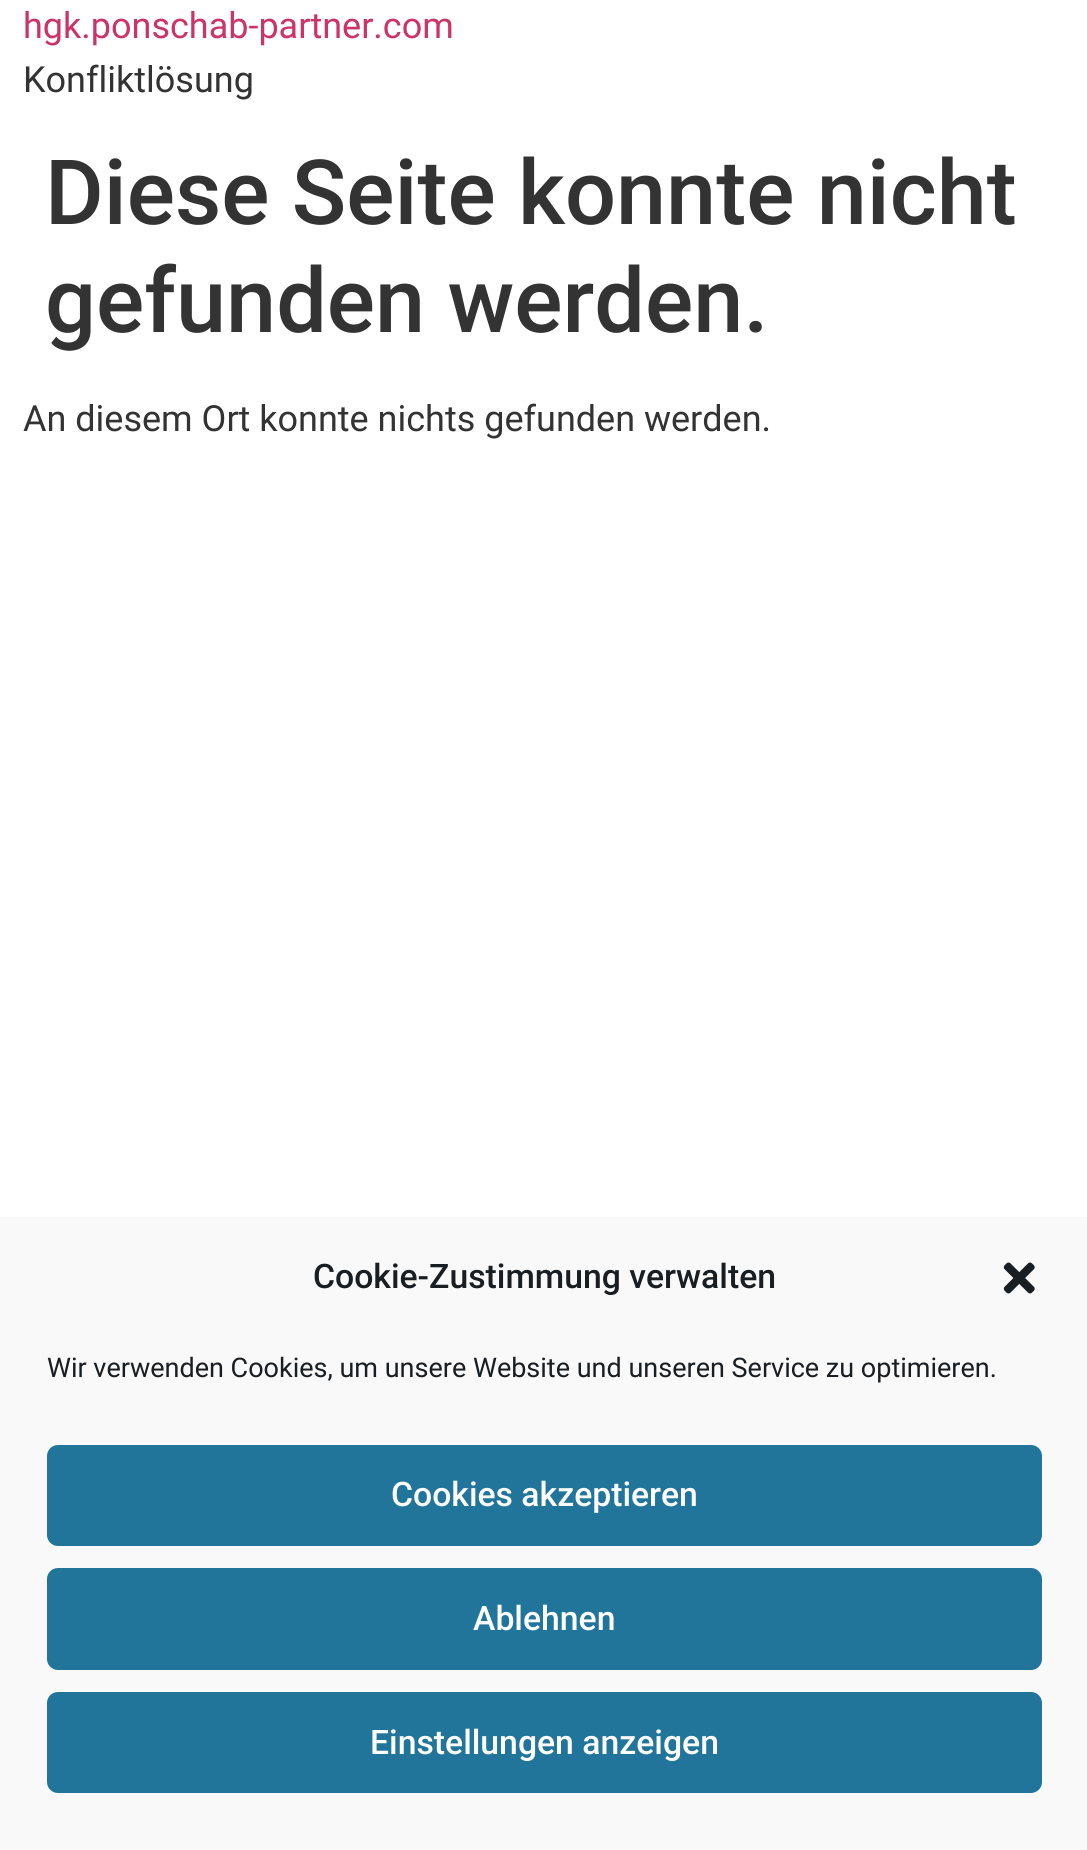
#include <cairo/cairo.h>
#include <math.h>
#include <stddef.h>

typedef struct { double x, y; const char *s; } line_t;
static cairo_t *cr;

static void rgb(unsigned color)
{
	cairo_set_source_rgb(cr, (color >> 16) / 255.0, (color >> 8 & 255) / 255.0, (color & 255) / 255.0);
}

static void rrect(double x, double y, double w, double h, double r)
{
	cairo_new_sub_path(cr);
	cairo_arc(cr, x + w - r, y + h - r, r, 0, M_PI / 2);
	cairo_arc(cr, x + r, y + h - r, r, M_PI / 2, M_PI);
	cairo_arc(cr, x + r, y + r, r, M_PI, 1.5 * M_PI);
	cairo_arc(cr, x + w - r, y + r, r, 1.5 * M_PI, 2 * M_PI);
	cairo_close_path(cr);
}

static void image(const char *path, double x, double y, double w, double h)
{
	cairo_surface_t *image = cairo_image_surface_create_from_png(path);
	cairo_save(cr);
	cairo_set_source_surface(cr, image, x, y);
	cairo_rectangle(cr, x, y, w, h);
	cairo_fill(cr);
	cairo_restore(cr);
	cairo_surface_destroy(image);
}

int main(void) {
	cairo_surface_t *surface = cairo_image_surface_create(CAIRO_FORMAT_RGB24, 1087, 1850);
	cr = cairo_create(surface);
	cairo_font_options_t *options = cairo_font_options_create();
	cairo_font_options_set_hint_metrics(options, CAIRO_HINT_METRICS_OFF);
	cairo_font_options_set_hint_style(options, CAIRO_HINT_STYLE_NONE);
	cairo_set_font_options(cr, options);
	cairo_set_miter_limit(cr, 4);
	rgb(0xffffff);
	cairo_paint(cr);
	rgb(0xf9f9f9);
	cairo_rectangle(cr, 0, 1217, 1087, 633);
	cairo_fill(cr);
	image("img/1.png", 1003, 1262, 32, 32);
	rgb(0x21759b);
	rrect(48, 1446, 993, 99, 10);
	cairo_fill_preserve(cr);
	cairo_stroke(cr);
	rrect(48, 1569, 993, 100, 10);
	cairo_fill_preserve(cr);
	cairo_stroke(cr);
	rrect(48, 1693, 993, 99, 10);
	cairo_fill_preserve(cr);
	cairo_stroke(cr);
	cairo_select_font_face(cr, "Roboto", CAIRO_FONT_SLANT_NORMAL, CAIRO_FONT_WEIGHT_NORMAL);
	cairo_set_font_size(cr, 36);
	rgb(0xcc3366);
	cairo_move_to(cr, 23, 38);
	cairo_show_text(cr, "hgk.ponschab-partner.com");
	rgb(0x333333);
	cairo_move_to(cr, 23, 92);
	cairo_show_text(cr, "Konfliktlösung");
	cairo_select_font_face(cr, "Roboto Medium", CAIRO_FONT_SLANT_NORMAL, CAIRO_FONT_WEIGHT_NORMAL);
	cairo_set_font_size(cr, 90);
	cairo_move_to(cr, 45, 224);
	cairo_show_text(cr, "Diese Seite konnte nicht");
	cairo_move_to(cr, 45, 332);
	cairo_show_text(cr, "gefunden werden.");
	cairo_select_font_face(cr, "Roboto", CAIRO_FONT_SLANT_NORMAL, CAIRO_FONT_WEIGHT_NORMAL);
	cairo_set_font_size(cr, 36);
	cairo_move_to(cr, 23, 431);
	cairo_show_text(cr, "An diesem Ort konnte nichts gefunden werden.");
	cairo_select_font_face(cr, "Roboto Medium", CAIRO_FONT_SLANT_NORMAL, CAIRO_FONT_WEIGHT_NORMAL);
	cairo_set_font_size(cr, 33.75);
	rgb(0x191e23);
	cairo_move_to(cr, 313, 1288);
	cairo_show_text(cr, "Cookie-Zustimmung verwalten");
	cairo_select_font_face(cr, "Roboto", CAIRO_FONT_SLANT_NORMAL, CAIRO_FONT_WEIGHT_NORMAL);
	cairo_set_font_size(cr, 27);
	cairo_move_to(cr, 47, 1377);
	cairo_show_text(cr, "Wir verwenden Cookies, um unsere Website und unseren Service zu optimieren.");
	cairo_select_font_face(cr, "Roboto Medium", CAIRO_FONT_SLANT_NORMAL, CAIRO_FONT_WEIGHT_NORMAL);
	cairo_set_font_size(cr, 33.75);
	rgb(0xffffff);
	{
		static const line_t items[] = {
			{391, 1506, "Cookies akzeptieren"},
			{473, 1630, "Ablehnen"},
			{370, 1754, "Einstellungen anzeigen"},
		};
		for (size_t i = 0; i < sizeof items / sizeof *items; i++) {
			cairo_move_to(cr, items[i].x, items[i].y);
			cairo_show_text(cr, items[i].s);
		}
	}
	cairo_surface_write_to_png(surface, "page.png");
	cairo_font_options_destroy(options);
	cairo_destroy(cr);
	cairo_surface_destroy(surface);
	return 0;
}
